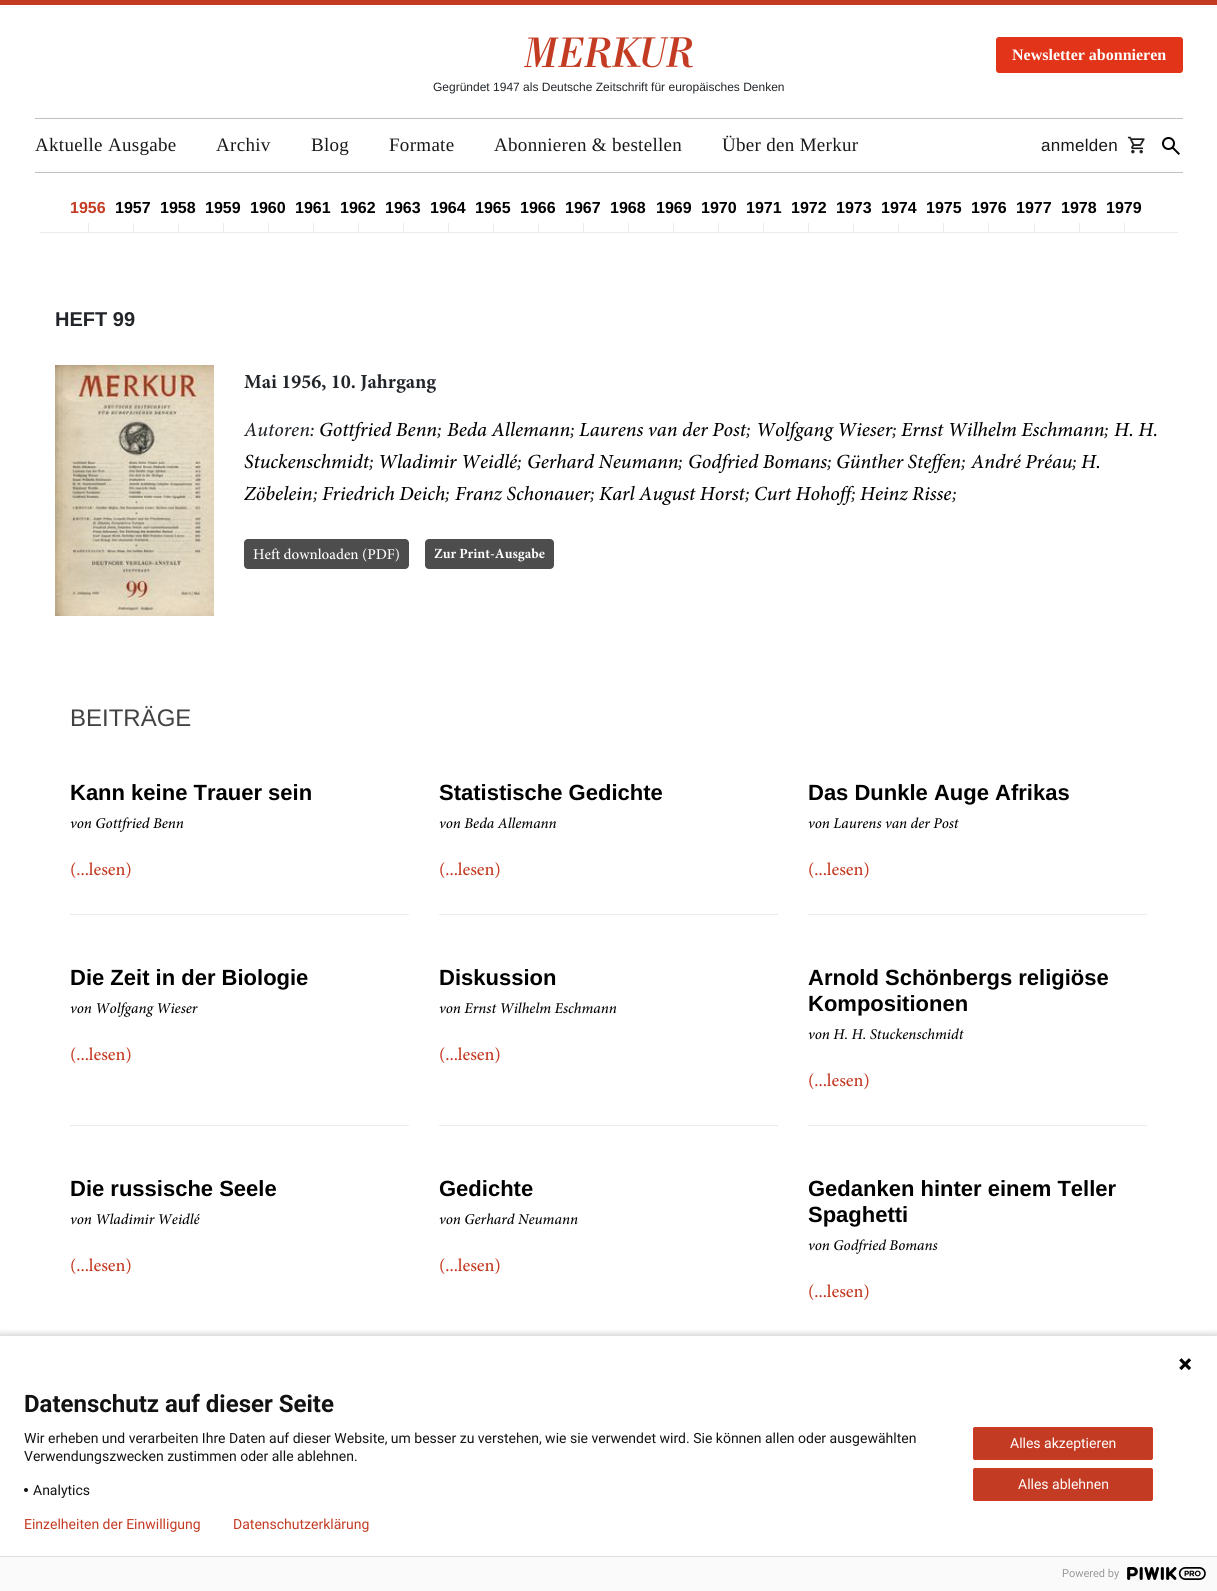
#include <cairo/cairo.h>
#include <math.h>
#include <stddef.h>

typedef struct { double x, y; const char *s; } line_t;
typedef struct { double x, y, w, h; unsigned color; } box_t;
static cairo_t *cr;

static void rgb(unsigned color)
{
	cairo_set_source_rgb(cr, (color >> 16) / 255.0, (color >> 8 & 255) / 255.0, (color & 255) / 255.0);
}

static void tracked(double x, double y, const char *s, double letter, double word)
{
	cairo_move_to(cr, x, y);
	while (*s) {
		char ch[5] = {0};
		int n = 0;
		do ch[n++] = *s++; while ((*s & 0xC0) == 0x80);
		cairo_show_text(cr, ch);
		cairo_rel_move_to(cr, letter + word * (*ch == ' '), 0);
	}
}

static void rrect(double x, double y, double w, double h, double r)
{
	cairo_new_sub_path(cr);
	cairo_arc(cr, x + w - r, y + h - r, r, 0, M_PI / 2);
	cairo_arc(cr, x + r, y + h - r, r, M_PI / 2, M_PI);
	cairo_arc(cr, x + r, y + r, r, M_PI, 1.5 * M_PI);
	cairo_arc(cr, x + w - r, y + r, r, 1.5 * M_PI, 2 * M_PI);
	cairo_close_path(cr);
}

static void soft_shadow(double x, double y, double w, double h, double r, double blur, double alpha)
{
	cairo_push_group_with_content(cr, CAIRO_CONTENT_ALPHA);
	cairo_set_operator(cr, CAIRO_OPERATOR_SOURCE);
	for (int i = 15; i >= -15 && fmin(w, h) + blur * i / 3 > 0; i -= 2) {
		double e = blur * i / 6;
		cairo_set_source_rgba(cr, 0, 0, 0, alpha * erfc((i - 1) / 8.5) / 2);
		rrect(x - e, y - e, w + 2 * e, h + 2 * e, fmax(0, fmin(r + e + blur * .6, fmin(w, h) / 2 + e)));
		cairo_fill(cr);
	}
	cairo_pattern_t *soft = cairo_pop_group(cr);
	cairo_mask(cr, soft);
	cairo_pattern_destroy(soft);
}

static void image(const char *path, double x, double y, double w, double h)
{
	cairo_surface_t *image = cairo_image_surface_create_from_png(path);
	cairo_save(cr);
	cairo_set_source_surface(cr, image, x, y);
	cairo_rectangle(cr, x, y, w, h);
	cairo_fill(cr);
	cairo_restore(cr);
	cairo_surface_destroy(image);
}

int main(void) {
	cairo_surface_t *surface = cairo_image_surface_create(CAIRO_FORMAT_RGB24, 1217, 1591);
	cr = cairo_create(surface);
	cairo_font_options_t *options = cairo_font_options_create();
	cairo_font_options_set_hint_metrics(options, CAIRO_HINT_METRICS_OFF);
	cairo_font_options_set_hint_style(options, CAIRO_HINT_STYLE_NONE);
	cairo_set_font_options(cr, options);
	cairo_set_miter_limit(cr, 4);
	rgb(0xffffff);
	cairo_paint(cr);
	rgb(0xc43b23);
	cairo_rectangle(cr, 0, 0, 1217, 5);
	cairo_fill(cr);
	rgb(0xe23418);
	rrect(996, 37, 187, 36, 3);
	cairo_fill(cr);
	image("img/1.png", 524, 37, 169, 31);
	rgb(0xbfbfbf);
	cairo_rectangle(cr, 35, 118, 1148, 1);
	cairo_fill(cr);
	cairo_rectangle(cr, 35, 172, 1148, 1);
	cairo_fill(cr);
	image("img/2.png", 1127, 136, 18, 18);
	image("img/3.png", 1162, 137, 18, 18);
	{
		static const box_t items[] = {
			{40, 232, 1138, 1, 0xebebeb},
			{88, 223, 1, 10, 0xebebeb},
			{133, 223, 1, 10, 0xebebeb},
			{178, 223, 1, 10, 0xebebeb},
			{223, 223, 1, 10, 0xebebeb},
			{268, 223, 1, 10, 0xebebeb},
			{313, 223, 1, 10, 0xebebeb},
			{358, 223, 1, 10, 0xebebeb},
			{403, 223, 1, 10, 0xebebeb},
			{448, 223, 1, 10, 0xebebeb},
			{493, 223, 1, 10, 0xebebeb},
			{538, 223, 1, 10, 0xebebeb},
			{583, 223, 1, 10, 0xebebeb},
			{628, 223, 1, 10, 0xebebeb},
			{673, 223, 1, 10, 0xebebeb},
			{718, 223, 1, 10, 0xebebeb},
			{763, 223, 1, 10, 0xebebeb},
			{808, 223, 1, 10, 0xebebeb},
			{853, 223, 1, 10, 0xebebeb},
			{898, 223, 1, 10, 0xebebeb},
			{943, 223, 1, 10, 0xebebeb},
			{988, 223, 1, 10, 0xebebeb},
			{1034, 223, 1, 10, 0xebebeb},
			{1079, 223, 1, 10, 0xebebeb},
			{1124, 223, 1, 10, 0xebebeb},
		};
		for (size_t i = 0; i < sizeof items / sizeof *items; i++) {
			rgb(items[i].color);
			cairo_rectangle(cr, items[i].x, items[i].y, items[i].w, items[i].h);
			cairo_fill(cr);
		}
	}
	image("img/4.png", 55, 365, 159, 251);
	rgb(0x4d4d4d);
	rrect(244, 539, 165, 30, 4);
	cairo_fill(cr);
	rrect(425, 539, 129, 30, 4);
	cairo_fill(cr);
	{
		static const box_t items[] = {
			{70, 914, 339, 1, 0xebebeb},
			{439, 914, 339, 1, 0xebebeb},
			{808, 914, 339, 1, 0xebebeb},
			{70, 1125, 339, 1, 0xebebeb},
			{439, 1125, 339, 1, 0xebebeb},
			{808, 1125, 339, 1, 0xebebeb},
		};
		for (size_t i = 0; i < sizeof items / sizeof *items; i++) {
			rgb(items[i].color);
			cairo_rectangle(cr, items[i].x, items[i].y, items[i].w, items[i].h);
			cairo_fill(cr);
		}
	}
	rgb(0x000000);
	soft_shadow(-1, 1333, 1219, 257, 0, 2.5, 0.14);
	rgb(0xffffff);
	cairo_rectangle(cr, 0, 1336, 1217, 220);
	cairo_fill(cr);
	image("img/5.png", 1179, 1358, 13, 13);
	rgb(0x131313);
	cairo_arc(cr, 26, 1490, 2, 0, 2 * M_PI);
	cairo_fill(cr);
	rgb(0xc43b23);
	rrect(973.5, 1427.5, 179, 32, 1.5);
	cairo_fill_preserve(cr);
	rgb(0xcf3b24);
	cairo_set_line_width(cr, 1);
	cairo_stroke(cr);
	rgb(0xc43b23);
	rrect(973.5, 1468.5, 179, 32, 1.5);
	cairo_fill_preserve(cr);
	rgb(0xcf3b24);
	cairo_stroke(cr);
	rgb(0xfafafa);
	cairo_rectangle(cr, 0, 1557, 1217, 34);
	cairo_fill(cr);
	rgb(0xdddddd);
	cairo_rectangle(cr, 0, 1556, 1217, 1);
	cairo_fill(cr);
	image("img/6.png", 1127, 1567, 79, 13);
	cairo_select_font_face(cr, "Liberation Serif", CAIRO_FONT_SLANT_NORMAL, CAIRO_FONT_WEIGHT_BOLD);
	cairo_set_font_size(cr, 16);
	rgb(0xffffff);
	cairo_move_to(cr, 1012, 60);
	cairo_show_text(cr, "Newsletter abonnieren");
	cairo_select_font_face(cr, "Liberation Sans", CAIRO_FONT_SLANT_NORMAL, CAIRO_FONT_WEIGHT_NORMAL);
	cairo_set_font_size(cr, 12);
	rgb(0x212529);
	cairo_move_to(cr, 433, 91);
	cairo_show_text(cr, "Gegründet 1947 als Deutsche Zeitschrift für europäisches Denken");
	cairo_select_font_face(cr, "Liberation Serif", CAIRO_FONT_SLANT_NORMAL, CAIRO_FONT_WEIGHT_NORMAL);
	cairo_set_font_size(cr, 19);
	rgb(0x191919);
	{
		static const line_t items[] = {
			{35, 151, "Aktuelle Ausgabe"},
			{216, 151, "Archiv"},
			{311, 151, "Blog"},
			{389, 151, "Formate"},
			{494, 151, "Abonnieren & bestellen"},
			{722, 151, "Über den Merkur"},
		};
		for (size_t i = 0; i < sizeof items / sizeof *items; i++) {
			tracked(items[i].x, items[i].y, items[i].s, 0.3, 0);
		}
	}
	cairo_select_font_face(cr, "Liberation Sans", CAIRO_FONT_SLANT_NORMAL, CAIRO_FONT_WEIGHT_NORMAL);
	cairo_set_font_size(cr, 17);
	tracked(1041, 151, "anmelden", 0.3, 0);
	cairo_select_font_face(cr, "Liberation Sans", CAIRO_FONT_SLANT_NORMAL, CAIRO_FONT_WEIGHT_BOLD);
	cairo_set_font_size(cr, 16);
	rgb(0xc43b23);
	cairo_move_to(cr, 70, 213);
	cairo_show_text(cr, "1956");
	rgb(0x000000);
	{
		static const line_t items[] = {
			{115, 213, "1957"},
			{160, 213, "1958"},
			{205, 213, "1959"},
			{250, 213, "1960"},
			{295, 213, "1961"},
			{340, 213, "1962"},
			{385, 213, "1963"},
			{430, 213, "1964"},
			{475, 213, "1965"},
			{520, 213, "1966"},
			{565, 213, "1967"},
			{610, 213, "1968"},
			{656, 213, "1969"},
			{701, 213, "1970"},
			{746, 213, "1971"},
			{791, 213, "1972"},
			{836, 213, "1973"},
			{881, 213, "1974"},
			{926, 213, "1975"},
			{971, 213, "1976"},
			{1016, 213, "1977"},
			{1061, 213, "1978"},
			{1106, 213, "1979"},
		};
		for (size_t i = 0; i < sizeof items / sizeof *items; i++) {
			cairo_move_to(cr, items[i].x, items[i].y);
			cairo_show_text(cr, items[i].s);
		}
	}
	cairo_set_font_size(cr, 20);
	rgb(0x212529);
	cairo_move_to(cr, 55, 326);
	cairo_show_text(cr, "HEFT 99");
	cairo_select_font_face(cr, "Minion", CAIRO_FONT_SLANT_NORMAL, CAIRO_FONT_WEIGHT_BOLD);
	cairo_move_to(cr, 244, 388);
	cairo_show_text(cr, "Mai 1956, 10. Jahrgang");
	cairo_select_font_face(cr, "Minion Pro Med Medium", CAIRO_FONT_SLANT_ITALIC, CAIRO_FONT_WEIGHT_NORMAL);
	cairo_move_to(cr, 244, 436);
	cairo_show_text(cr, "Autoren:");
	rgb(0x000000);
	cairo_move_to(cr, 319, 436);
	cairo_show_text(cr, "Gottfried Benn");
	rgb(0x212529);
	cairo_move_to(cr, 437, 436);
	cairo_show_text(cr, ";");
	rgb(0x000000);
	cairo_move_to(cr, 447, 436);
	cairo_show_text(cr, "Beda Allemann");
	rgb(0x212529);
	cairo_move_to(cr, 570, 436);
	cairo_show_text(cr, ";");
	rgb(0x000000);
	cairo_move_to(cr, 579, 436);
	cairo_show_text(cr, "Laurens van der Post");
	rgb(0x212529);
	cairo_move_to(cr, 746, 436);
	cairo_show_text(cr, ";");
	rgb(0x000000);
	cairo_move_to(cr, 756, 436);
	cairo_show_text(cr, "Wolfgang Wieser");
	rgb(0x212529);
	cairo_move_to(cr, 892, 436);
	cairo_show_text(cr, ";");
	rgb(0x000000);
	cairo_move_to(cr, 901, 436);
	cairo_show_text(cr, "Ernst Wilhelm Eschmann");
	rgb(0x212529);
	cairo_move_to(cr, 1104, 436);
	cairo_show_text(cr, ";");
	rgb(0x000000);
	cairo_move_to(cr, 1114, 436);
	cairo_show_text(cr, "H. H.");
	cairo_move_to(cr, 244, 468);
	cairo_show_text(cr, "Stuckenschmidt");
	rgb(0x212529);
	cairo_move_to(cr, 369, 468);
	cairo_show_text(cr, ";");
	rgb(0x000000);
	cairo_move_to(cr, 378, 468);
	cairo_show_text(cr, "Wladimir Weidlé");
	rgb(0x212529);
	cairo_move_to(cr, 517, 468);
	cairo_show_text(cr, ";");
	rgb(0x000000);
	cairo_move_to(cr, 527, 468);
	cairo_show_text(cr, "Gerhard Neumann");
	rgb(0x212529);
	cairo_move_to(cr, 678, 468);
	cairo_show_text(cr, ";");
	rgb(0x000000);
	cairo_move_to(cr, 688, 468);
	cairo_show_text(cr, "Godfried Bomans");
	rgb(0x212529);
	cairo_move_to(cr, 827, 468);
	cairo_show_text(cr, ";");
	rgb(0x000000);
	cairo_move_to(cr, 836, 468);
	cairo_show_text(cr, "Günther Steffen");
	rgb(0x212529);
	cairo_move_to(cr, 961, 468);
	cairo_show_text(cr, ";");
	rgb(0x000000);
	cairo_move_to(cr, 971, 468);
	cairo_show_text(cr, "André Préau");
	rgb(0x212529);
	cairo_move_to(cr, 1072, 468);
	cairo_show_text(cr, ";");
	rgb(0x000000);
	cairo_move_to(cr, 1081, 468);
	cairo_show_text(cr, "H.");
	cairo_move_to(cr, 244, 500);
	cairo_show_text(cr, "Zöbelein");
	rgb(0x212529);
	cairo_move_to(cr, 313, 500);
	cairo_show_text(cr, ";");
	rgb(0x000000);
	cairo_move_to(cr, 322, 500);
	cairo_show_text(cr, "Friedrich Deich");
	rgb(0x212529);
	cairo_move_to(cr, 445, 500);
	cairo_show_text(cr, ";");
	rgb(0x000000);
	cairo_move_to(cr, 455, 500);
	cairo_show_text(cr, "Franz Schonauer");
	rgb(0x212529);
	cairo_move_to(cr, 590, 500);
	cairo_show_text(cr, ";");
	rgb(0x000000);
	cairo_move_to(cr, 599, 500);
	cairo_show_text(cr, "Karl August Horst");
	rgb(0x212529);
	cairo_move_to(cr, 745, 500);
	cairo_show_text(cr, ";");
	rgb(0x000000);
	cairo_move_to(cr, 754, 500);
	cairo_show_text(cr, "Curt Hohoff");
	cairo_move_to(cr, 860, 500);
	cairo_show_text(cr, "Heinz Risse");
	rgb(0x212529);
	cairo_move_to(cr, 851, 500);
	cairo_show_text(cr, ";");
	cairo_move_to(cr, 952, 500);
	cairo_show_text(cr, ";");
	cairo_select_font_face(cr, "Minion Pro Med Medium", CAIRO_FONT_SLANT_NORMAL, CAIRO_FONT_WEIGHT_NORMAL);
	cairo_set_font_size(cr, 15);
	rgb(0xffffff);
	cairo_move_to(cr, 253, 559);
	cairo_show_text(cr, "Heft downloaden (PDF)");
	cairo_select_font_face(cr, "Minion", CAIRO_FONT_SLANT_NORMAL, CAIRO_FONT_WEIGHT_BOLD);
	cairo_set_font_size(cr, 14);
	cairo_move_to(cr, 434, 558);
	cairo_show_text(cr, "Zur Print-Ausgabe");
	cairo_select_font_face(cr, "Liberation Sans", CAIRO_FONT_SLANT_NORMAL, CAIRO_FONT_WEIGHT_NORMAL);
	cairo_set_font_size(cr, 24);
	rgb(0x424242);
	cairo_move_to(cr, 70, 726);
	cairo_show_text(cr, "BEITRÄGE");
	cairo_select_font_face(cr, "Liberation Sans", CAIRO_FONT_SLANT_NORMAL, CAIRO_FONT_WEIGHT_BOLD);
	cairo_set_font_size(cr, 22);
	rgb(0x000000);
	cairo_move_to(cr, 70, 800);
	cairo_show_text(cr, "Kann keine Trauer sein");
	cairo_select_font_face(cr, "Minion Pro Med Medium", CAIRO_FONT_SLANT_ITALIC, CAIRO_FONT_WEIGHT_NORMAL);
	cairo_set_font_size(cr, 15);
	cairo_move_to(cr, 70, 828);
	cairo_show_text(cr, "von Gottfried Benn");
	cairo_select_font_face(cr, "Minion Pro Med Medium", CAIRO_FONT_SLANT_NORMAL, CAIRO_FONT_WEIGHT_NORMAL);
	cairo_set_font_size(cr, 18);
	rgb(0xc43b23);
	cairo_move_to(cr, 70, 875);
	cairo_show_text(cr, "(...lesen)");
	cairo_select_font_face(cr, "Liberation Sans", CAIRO_FONT_SLANT_NORMAL, CAIRO_FONT_WEIGHT_BOLD);
	cairo_set_font_size(cr, 22);
	rgb(0x000000);
	cairo_move_to(cr, 439, 800);
	cairo_show_text(cr, "Statistische Gedichte");
	cairo_select_font_face(cr, "Minion Pro Med Medium", CAIRO_FONT_SLANT_ITALIC, CAIRO_FONT_WEIGHT_NORMAL);
	cairo_set_font_size(cr, 15);
	cairo_move_to(cr, 439, 828);
	cairo_show_text(cr, "von Beda Allemann");
	cairo_select_font_face(cr, "Minion Pro Med Medium", CAIRO_FONT_SLANT_NORMAL, CAIRO_FONT_WEIGHT_NORMAL);
	cairo_set_font_size(cr, 18);
	rgb(0xc43b23);
	cairo_move_to(cr, 439, 875);
	cairo_show_text(cr, "(...lesen)");
	cairo_select_font_face(cr, "Liberation Sans", CAIRO_FONT_SLANT_NORMAL, CAIRO_FONT_WEIGHT_BOLD);
	cairo_set_font_size(cr, 22);
	rgb(0x000000);
	cairo_move_to(cr, 808, 800);
	cairo_show_text(cr, "Das Dunkle Auge Afrikas");
	cairo_select_font_face(cr, "Minion Pro Med Medium", CAIRO_FONT_SLANT_ITALIC, CAIRO_FONT_WEIGHT_NORMAL);
	cairo_set_font_size(cr, 15);
	cairo_move_to(cr, 808, 828);
	cairo_show_text(cr, "von Laurens van der Post");
	cairo_select_font_face(cr, "Minion Pro Med Medium", CAIRO_FONT_SLANT_NORMAL, CAIRO_FONT_WEIGHT_NORMAL);
	cairo_set_font_size(cr, 18);
	rgb(0xc43b23);
	cairo_move_to(cr, 808, 875);
	cairo_show_text(cr, "(...lesen)");
	cairo_select_font_face(cr, "Liberation Sans", CAIRO_FONT_SLANT_NORMAL, CAIRO_FONT_WEIGHT_BOLD);
	cairo_set_font_size(cr, 22);
	rgb(0x000000);
	cairo_move_to(cr, 70, 985);
	cairo_show_text(cr, "Die Zeit in der Biologie");
	cairo_select_font_face(cr, "Minion Pro Med Medium", CAIRO_FONT_SLANT_ITALIC, CAIRO_FONT_WEIGHT_NORMAL);
	cairo_set_font_size(cr, 15);
	cairo_move_to(cr, 70, 1013);
	cairo_show_text(cr, "von Wolfgang Wieser");
	cairo_select_font_face(cr, "Minion Pro Med Medium", CAIRO_FONT_SLANT_NORMAL, CAIRO_FONT_WEIGHT_NORMAL);
	cairo_set_font_size(cr, 18);
	rgb(0xc43b23);
	cairo_move_to(cr, 70, 1060);
	cairo_show_text(cr, "(...lesen)");
	cairo_select_font_face(cr, "Liberation Sans", CAIRO_FONT_SLANT_NORMAL, CAIRO_FONT_WEIGHT_BOLD);
	cairo_set_font_size(cr, 22);
	rgb(0x000000);
	cairo_move_to(cr, 439, 985);
	cairo_show_text(cr, "Diskussion");
	cairo_select_font_face(cr, "Minion Pro Med Medium", CAIRO_FONT_SLANT_ITALIC, CAIRO_FONT_WEIGHT_NORMAL);
	cairo_set_font_size(cr, 15);
	cairo_move_to(cr, 439, 1013);
	cairo_show_text(cr, "von Ernst Wilhelm Eschmann");
	cairo_select_font_face(cr, "Minion Pro Med Medium", CAIRO_FONT_SLANT_NORMAL, CAIRO_FONT_WEIGHT_NORMAL);
	cairo_set_font_size(cr, 18);
	rgb(0xc43b23);
	cairo_move_to(cr, 439, 1060);
	cairo_show_text(cr, "(...lesen)");
	cairo_select_font_face(cr, "Liberation Sans", CAIRO_FONT_SLANT_NORMAL, CAIRO_FONT_WEIGHT_BOLD);
	cairo_set_font_size(cr, 22);
	rgb(0x000000);
	cairo_move_to(cr, 808, 985);
	cairo_show_text(cr, "Arnold Schönbergs religiöse");
	cairo_move_to(cr, 808, 1011);
	cairo_show_text(cr, "Kompositionen");
	cairo_select_font_face(cr, "Minion Pro Med Medium", CAIRO_FONT_SLANT_ITALIC, CAIRO_FONT_WEIGHT_NORMAL);
	cairo_set_font_size(cr, 15);
	cairo_move_to(cr, 808, 1039);
	cairo_show_text(cr, "von H. H. Stuckenschmidt");
	cairo_select_font_face(cr, "Minion Pro Med Medium", CAIRO_FONT_SLANT_NORMAL, CAIRO_FONT_WEIGHT_NORMAL);
	cairo_set_font_size(cr, 18);
	rgb(0xc43b23);
	cairo_move_to(cr, 808, 1086);
	cairo_show_text(cr, "(...lesen)");
	cairo_select_font_face(cr, "Liberation Sans", CAIRO_FONT_SLANT_NORMAL, CAIRO_FONT_WEIGHT_BOLD);
	cairo_set_font_size(cr, 22);
	rgb(0x000000);
	cairo_move_to(cr, 70, 1196);
	cairo_show_text(cr, "Die russische Seele");
	cairo_select_font_face(cr, "Minion Pro Med Medium", CAIRO_FONT_SLANT_ITALIC, CAIRO_FONT_WEIGHT_NORMAL);
	cairo_set_font_size(cr, 15);
	cairo_move_to(cr, 70, 1224);
	cairo_show_text(cr, "von Wladimir Weidlé");
	cairo_select_font_face(cr, "Minion Pro Med Medium", CAIRO_FONT_SLANT_NORMAL, CAIRO_FONT_WEIGHT_NORMAL);
	cairo_set_font_size(cr, 18);
	rgb(0xc43b23);
	cairo_move_to(cr, 70, 1271);
	cairo_show_text(cr, "(...lesen)");
	cairo_select_font_face(cr, "Liberation Sans", CAIRO_FONT_SLANT_NORMAL, CAIRO_FONT_WEIGHT_BOLD);
	cairo_set_font_size(cr, 22);
	rgb(0x000000);
	cairo_move_to(cr, 439, 1196);
	cairo_show_text(cr, "Gedichte");
	cairo_select_font_face(cr, "Minion Pro Med Medium", CAIRO_FONT_SLANT_ITALIC, CAIRO_FONT_WEIGHT_NORMAL);
	cairo_set_font_size(cr, 15);
	cairo_move_to(cr, 439, 1224);
	cairo_show_text(cr, "von Gerhard Neumann");
	cairo_select_font_face(cr, "Minion Pro Med Medium", CAIRO_FONT_SLANT_NORMAL, CAIRO_FONT_WEIGHT_NORMAL);
	cairo_set_font_size(cr, 18);
	rgb(0xc43b23);
	cairo_move_to(cr, 439, 1271);
	cairo_show_text(cr, "(...lesen)");
	cairo_select_font_face(cr, "Liberation Sans", CAIRO_FONT_SLANT_NORMAL, CAIRO_FONT_WEIGHT_BOLD);
	cairo_set_font_size(cr, 22);
	rgb(0x000000);
	cairo_move_to(cr, 808, 1196);
	cairo_show_text(cr, "Gedanken hinter einem Teller");
	cairo_move_to(cr, 808, 1222);
	cairo_show_text(cr, "Spaghetti");
	cairo_select_font_face(cr, "Minion Pro Med Medium", CAIRO_FONT_SLANT_ITALIC, CAIRO_FONT_WEIGHT_NORMAL);
	cairo_set_font_size(cr, 15);
	cairo_move_to(cr, 808, 1250);
	cairo_show_text(cr, "von Godfried Bomans");
	cairo_select_font_face(cr, "Minion Pro Med Medium", CAIRO_FONT_SLANT_NORMAL, CAIRO_FONT_WEIGHT_NORMAL);
	cairo_set_font_size(cr, 18);
	rgb(0xc43b23);
	cairo_move_to(cr, 808, 1297);
	cairo_show_text(cr, "(...lesen)");
	cairo_select_font_face(cr, "Roboto", CAIRO_FONT_SLANT_NORMAL, CAIRO_FONT_WEIGHT_BOLD);
	cairo_set_font_size(cr, 24);
	rgb(0x131313);
	cairo_move_to(cr, 24, 1412);
	cairo_show_text(cr, "Datenschutz auf dieser Seite");
	cairo_select_font_face(cr, "Roboto", CAIRO_FONT_SLANT_NORMAL, CAIRO_FONT_WEIGHT_NORMAL);
	cairo_set_font_size(cr, 14);
	{
		static const line_t items[] = {
			{24, 1443, "Wir erheben und verarbeiten Ihre Daten auf dieser Website, um besser zu verstehen, wie sie verwendet wird. Sie können allen oder ausgewählten"},
			{24, 1461, "Verwendungszwecken zustimmen oder alle ablehnen."},
			{33, 1495, "Analytics"},
		};
		for (size_t i = 0; i < sizeof items / sizeof *items; i++) {
			cairo_move_to(cr, items[i].x, items[i].y);
			cairo_show_text(cr, items[i].s);
		}
	}
	rgb(0xffffff);
	cairo_move_to(cr, 1010, 1448);
	cairo_show_text(cr, "Alles akzeptieren");
	cairo_move_to(cr, 1018, 1489);
	cairo_show_text(cr, "Alles ablehnen");
	rgb(0xc43b23);
	cairo_move_to(cr, 24, 1529);
	cairo_show_text(cr, "Einzelheiten der Einwilligung");
	cairo_move_to(cr, 233, 1529);
	cairo_show_text(cr, "Datenschutzerklärung");
	cairo_set_font_size(cr, 11);
	rgb(0x999999);
	cairo_move_to(cr, 1062, 1577);
	cairo_show_text(cr, "Powered by");
	cairo_surface_write_to_png(surface, "page.png");
	cairo_font_options_destroy(options);
	cairo_destroy(cr);
	cairo_surface_destroy(surface);
	return 0;
}
